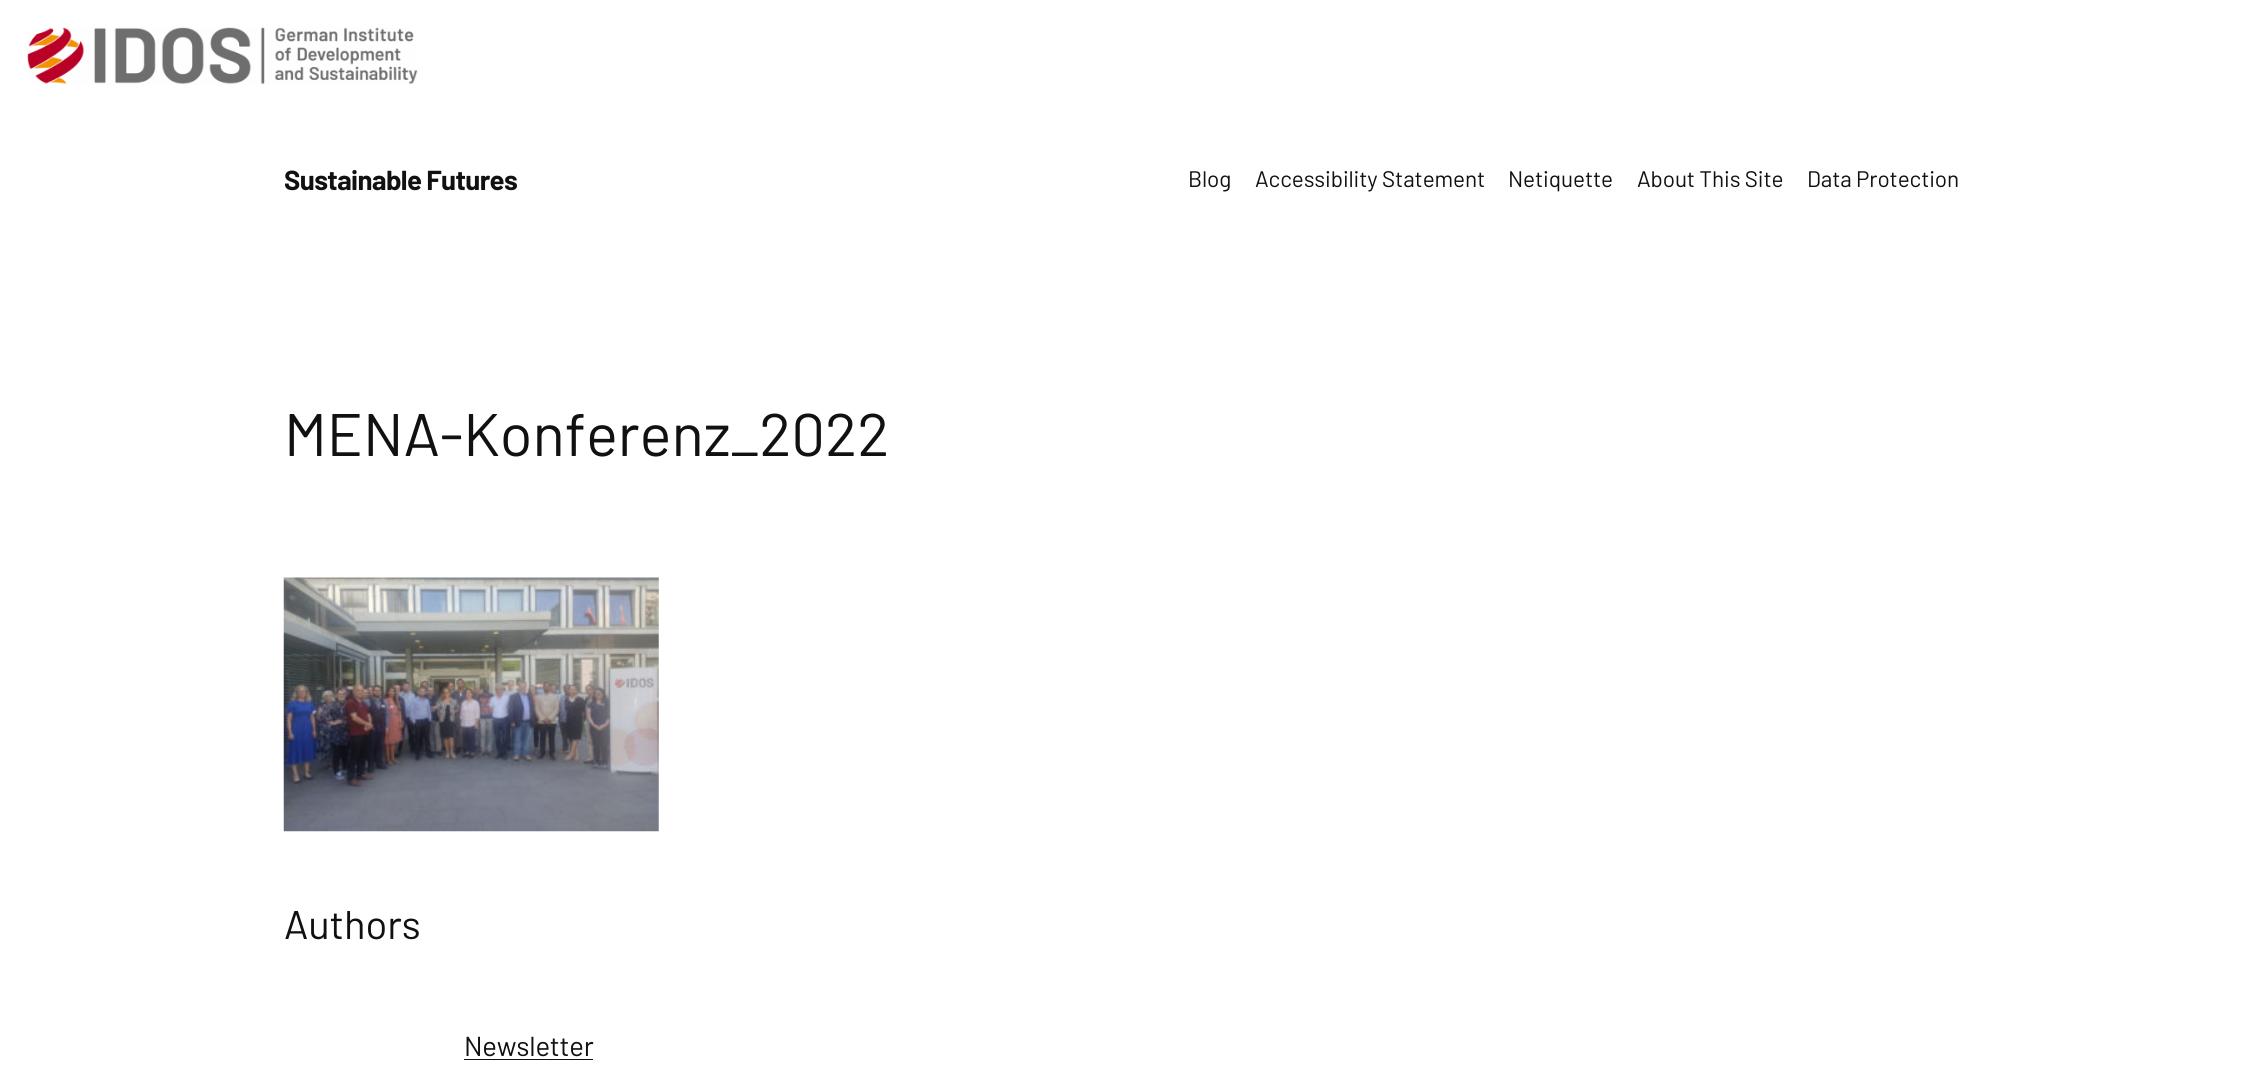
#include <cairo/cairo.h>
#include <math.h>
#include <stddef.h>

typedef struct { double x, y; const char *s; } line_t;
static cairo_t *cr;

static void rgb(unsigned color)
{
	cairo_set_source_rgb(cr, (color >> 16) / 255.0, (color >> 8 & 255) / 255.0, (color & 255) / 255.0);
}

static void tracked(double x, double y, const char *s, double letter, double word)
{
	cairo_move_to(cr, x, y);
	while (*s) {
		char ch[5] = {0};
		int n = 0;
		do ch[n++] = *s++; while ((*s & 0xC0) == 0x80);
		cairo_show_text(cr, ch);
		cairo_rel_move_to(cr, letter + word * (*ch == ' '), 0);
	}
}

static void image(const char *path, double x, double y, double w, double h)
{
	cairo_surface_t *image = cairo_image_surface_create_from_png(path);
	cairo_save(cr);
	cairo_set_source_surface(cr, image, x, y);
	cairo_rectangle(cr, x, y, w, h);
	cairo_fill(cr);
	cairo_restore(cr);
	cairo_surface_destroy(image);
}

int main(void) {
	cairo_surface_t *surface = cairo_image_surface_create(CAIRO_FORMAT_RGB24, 2242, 1076);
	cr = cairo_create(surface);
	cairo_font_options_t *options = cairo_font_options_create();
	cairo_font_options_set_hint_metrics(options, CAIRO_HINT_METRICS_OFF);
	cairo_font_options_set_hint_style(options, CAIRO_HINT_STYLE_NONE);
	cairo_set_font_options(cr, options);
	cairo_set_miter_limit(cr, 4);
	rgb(0xffffff);
	cairo_paint(cr);
	image("img/1.png", 27, 27, 391, 58);
	image("img/2.png", 283, 577, 376, 255);
	rgb(0x111111);
	cairo_rectangle(cr, 464, 1059, 129, 1);
	cairo_fill(cr);
	cairo_select_font_face(cr, "Barlow", CAIRO_FONT_SLANT_NORMAL, CAIRO_FONT_WEIGHT_BOLD);
	cairo_set_font_size(cr, 27.5);
	tracked(284, 190, "Sustainable Futures", -0.6, 0);
	cairo_select_font_face(cr, "Barlow", CAIRO_FONT_SLANT_NORMAL, CAIRO_FONT_WEIGHT_NORMAL);
	cairo_set_font_size(cr, 22.5);
	{
		static const line_t items[] = {
			{1188, 187, "Blog"},
			{1255, 187, "Accessibility Statement"},
			{1508, 187, "Netiquette"},
			{1637, 187, "About This Site"},
			{1807, 187, "Data Protection"},
		};
		for (size_t i = 0; i < sizeof items / sizeof *items; i++) {
			tracked(items[i].x, items[i].y, items[i].s, -0.1, 0);
		}
	}
	cairo_set_font_size(cr, 60);
	tracked(284, 456, "MENA-Konferenz_2022", -0.1, 0);
	cairo_set_font_size(cr, 40);
	tracked(284, 939, "Authors", -0.1, 0);
	cairo_set_font_size(cr, 27.5);
	tracked(464, 1056, "Newsletter", -0.25, 0);
	cairo_surface_write_to_png(surface, "page.png");
	cairo_font_options_destroy(options);
	cairo_destroy(cr);
	cairo_surface_destroy(surface);
	return 0;
}
